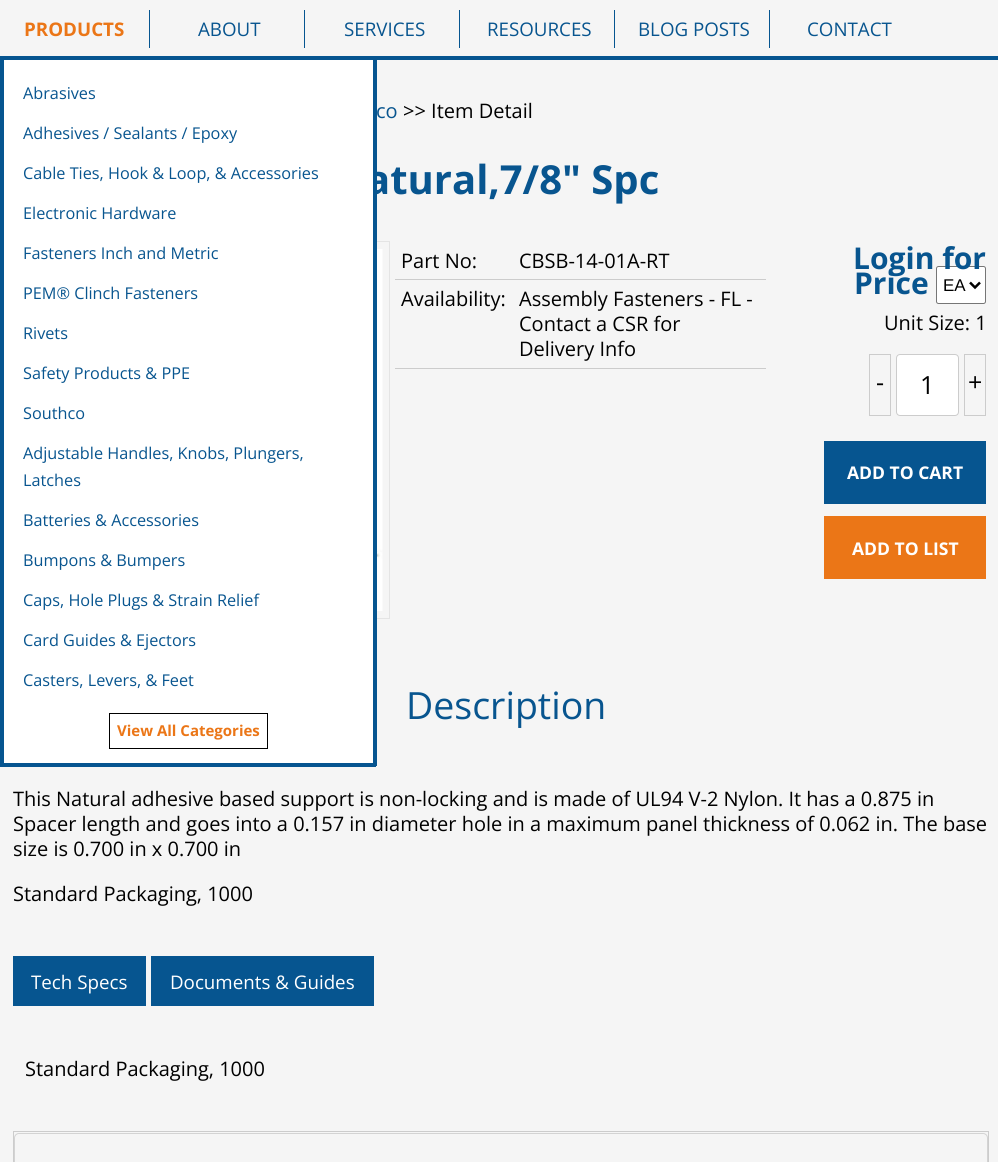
#include <cairo/cairo.h>
#include <math.h>
#include <stddef.h>

typedef struct { double x, y; const char *s; } line_t;
typedef struct { double x, y, w, h; unsigned color; } box_t;
static cairo_t *cr;

static void rgb(unsigned color)
{
	cairo_set_source_rgb(cr, (color >> 16) / 255.0, (color >> 8 & 255) / 255.0, (color & 255) / 255.0);
}

static void rrect(double x, double y, double w, double h, double r)
{
	cairo_new_sub_path(cr);
	cairo_arc(cr, x + w - r, y + h - r, r, 0, M_PI / 2);
	cairo_arc(cr, x + r, y + h - r, r, M_PI / 2, M_PI);
	cairo_arc(cr, x + r, y + r, r, M_PI, 1.5 * M_PI);
	cairo_arc(cr, x + w - r, y + r, r, 1.5 * M_PI, 2 * M_PI);
	cairo_close_path(cr);
}

static void image(const char *path, double x, double y, double w, double h)
{
	cairo_surface_t *image = cairo_image_surface_create_from_png(path);
	cairo_save(cr);
	cairo_set_source_surface(cr, image, x, y);
	cairo_rectangle(cr, x, y, w, h);
	cairo_fill(cr);
	cairo_restore(cr);
	cairo_surface_destroy(image);
}

int main(void) {
	cairo_surface_t *surface = cairo_image_surface_create(CAIRO_FORMAT_RGB24, 998, 1162);
	cr = cairo_create(surface);
	cairo_font_options_t *options = cairo_font_options_create();
	cairo_font_options_set_hint_metrics(options, CAIRO_HINT_METRICS_OFF);
	cairo_font_options_set_hint_style(options, CAIRO_HINT_STYLE_NONE);
	cairo_set_font_options(cr, options);
	cairo_set_miter_limit(cr, 4);
	rgb(0xf5f5f5);
	cairo_paint(cr);
	{
		static const box_t items[] = {
			{0, 56, 998, 4, 0x065590},
			{149, 10, 1, 38, 0x065590},
			{304, 10, 1, 38, 0x065590},
			{459, 10, 1, 38, 0x065590},
			{614, 10, 1, 38, 0x065590},
			{769, 10, 1, 38, 0x065590},
		};
		for (size_t i = 0; i < sizeof items / sizeof *items; i++) {
			rgb(items[i].color);
			cairo_rectangle(cr, items[i].x, items[i].y, items[i].w, items[i].h);
			cairo_fill(cr);
		}
	}
	cairo_rectangle(cr, 13.5, 241.5, 376, 377);
	rgb(0xe4e4e4);
	cairo_set_line_width(cr, 1);
	cairo_stroke(cr);
	image("img/1.png", 377, 249, 6, 362);
	rgb(0xcccccc);
	cairo_rectangle(cr, 395, 279, 371, 1);
	cairo_fill(cr);
	cairo_rectangle(cr, 395, 368, 371, 1);
	cairo_fill(cr);
	rgb(0xffffff);
	rrect(936.5, 266.5, 49, 37, 2);
	cairo_fill_preserve(cr);
	rgb(0x767676);
	cairo_stroke(cr);
	cairo_new_path(cr);
	cairo_move_to(cr, 970, 282.5);
	cairo_line_to(cr, 975, 287.5);
	cairo_line_to(cr, 980, 282.5);
	rgb(0x000000);
	cairo_set_line_width(cr, 2.5);
	cairo_stroke(cr);
	cairo_rectangle(cr, 869.5, 354.5, 21, 61);
	rgb(0xcccccc);
	cairo_set_line_width(cr, 1);
	cairo_stroke(cr);
	rgb(0xffffff);
	rrect(896.5, 354.5, 62, 61, 3.5);
	cairo_fill_preserve(cr);
	rgb(0xcccccc);
	cairo_stroke(cr);
	cairo_rectangle(cr, 964.5, 354.5, 21, 61);
	cairo_stroke(cr);
	{
		static const box_t items[] = {
			{824, 441, 162, 63, 0x065590},
			{824, 516, 162, 63, 0xeb7617},
			{13, 956, 133, 50, 0x065590},
			{151, 956, 223, 50, 0x065590},
		};
		for (size_t i = 0; i < sizeof items / sizeof *items; i++) {
			rgb(items[i].color);
			cairo_rectangle(cr, items[i].x, items[i].y, items[i].w, items[i].h);
			cairo_fill(cr);
		}
	}
	cairo_rectangle(cr, 13.5, 1131.5, 975, 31);
	rgb(0xcccccc);
	cairo_stroke(cr);
	rrect(14.5, 1133.5, 973, 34, 4.5);
	rgb(0xd3d3d3);
	cairo_stroke(cr);
	cairo_select_font_face(cr, "Open Sans", CAIRO_FONT_SLANT_NORMAL, CAIRO_FONT_WEIGHT_BOLD);
	cairo_set_font_size(cr, 18.75);
	rgb(0xeb7617);
	cairo_move_to(cr, 24, 36);
	cairo_show_text(cr, "PRODUCTS");
	cairo_select_font_face(cr, "Open Sans", CAIRO_FONT_SLANT_NORMAL, CAIRO_FONT_WEIGHT_NORMAL);
	rgb(0x08558f);
	{
		static const line_t items[] = {
			{198, 36, "ABOUT"},
			{344, 36, "SERVICES"},
			{487, 36, "RESOURCES"},
			{638, 36, "BLOG POSTS"},
			{807, 36, "CONTACT"},
		};
		for (size_t i = 0; i < sizeof items / sizeof *items; i++) {
			cairo_move_to(cr, items[i].x, items[i].y);
			cairo_show_text(cr, items[i].s);
		}
	}
	cairo_set_font_size(cr, 20);
	cairo_move_to(cr, 376, 118);
	cairo_show_text(cr, "co");
	rgb(0x000000);
	cairo_move_to(cr, 403, 118);
	cairo_show_text(cr, ">> Item Detail");
	cairo_select_font_face(cr, "Open Sans", CAIRO_FONT_SLANT_NORMAL, CAIRO_FONT_WEIGHT_BOLD);
	cairo_set_font_size(cr, 40);
	rgb(0x08558f);
	cairo_move_to(cr, 366, 194);
	cairo_show_text(cr, "atural,7/8\" Spc");
	rgb(0xffffff);
	cairo_rectangle(cr, 4, 60, 369, 703);
	cairo_fill(cr);
	cairo_rectangle(cr, 109.5, 713.5, 158, 35);
	rgb(0x000000);
	cairo_stroke(cr);
	cairo_set_font_size(cr, 15);
	rgb(0xeb7617);
	cairo_move_to(cr, 117, 736);
	cairo_show_text(cr, "View All Categories");
	cairo_select_font_face(cr, "Open Sans", CAIRO_FONT_SLANT_NORMAL, CAIRO_FONT_WEIGHT_NORMAL);
	cairo_set_font_size(cr, 16.25);
	rgb(0x08558f);
	{
		static const line_t items[] = {
			{23, 686, "Casters, Levers, & Feet"},
			{23, 646, "Card Guides & Ejectors"},
			{23, 606, "Caps, Hole Plugs & Strain Relief"},
			{23, 566, "Bumpons & Bumpers"},
			{23, 526, "Batteries & Accessories"},
			{23, 486, "Latches"},
			{23, 459, "Adjustable Handles, Knobs, Plungers,"},
			{23, 419, "Southco"},
			{23, 379, "Safety Products & PPE"},
			{23, 339, "Rivets"},
			{23, 299, "PEM® Clinch Fasteners"},
			{23, 259, "Fasteners Inch and Metric"},
			{23, 219, "Electronic Hardware"},
			{23, 179, "Cable Ties, Hook & Loop, & Accessories"},
			{23, 139, "Adhesives / Sealants / Epoxy"},
			{23, 99, "Abrasives"},
		};
		for (size_t i = 0; i < sizeof items / sizeof *items; i++) {
			cairo_move_to(cr, items[i].x, items[i].y);
			cairo_show_text(cr, items[i].s);
		}
	}
	{
		static const box_t items[] = {
			{373, 60, 4, 706, 0x065590},
			{0, 763, 376, 4, 0x065590},
			{0, 60, 4, 706, 0x065590},
		};
		for (size_t i = 0; i < sizeof items / sizeof *items; i++) {
			rgb(items[i].color);
			cairo_rectangle(cr, items[i].x, items[i].y, items[i].w, items[i].h);
			cairo_fill(cr);
		}
	}
	cairo_set_font_size(cr, 20);
	rgb(0x000000);
	{
		static const line_t items[] = {
			{401, 268, "Part No:"},
			{519, 268, "CBSB-14-01A-RT"},
			{401, 306, "Availability:"},
			{519, 306, "Assembly Fasteners - FL -"},
			{519, 331, "Contact a CSR for"},
			{519, 356, "Delivery Info"},
		};
		for (size_t i = 0; i < sizeof items / sizeof *items; i++) {
			cairo_move_to(cr, items[i].x, items[i].y);
			cairo_show_text(cr, items[i].s);
		}
	}
	cairo_select_font_face(cr, "Open Sans", CAIRO_FONT_SLANT_NORMAL, CAIRO_FONT_WEIGHT_BOLD);
	cairo_set_font_size(cr, 30);
	rgb(0x08558f);
	cairo_move_to(cr, 853, 269);
	cairo_show_text(cr, "Login for");
	cairo_move_to(cr, 854, 294);
	cairo_show_text(cr, "Price");
	cairo_select_font_face(cr, "Liberation Sans", CAIRO_FONT_SLANT_NORMAL, CAIRO_FONT_WEIGHT_NORMAL);
	cairo_set_font_size(cr, 17);
	rgb(0x000000);
	cairo_move_to(cr, 943, 291);
	cairo_show_text(cr, "EA");
	cairo_select_font_face(cr, "Open Sans", CAIRO_FONT_SLANT_NORMAL, CAIRO_FONT_WEIGHT_NORMAL);
	cairo_set_font_size(cr, 20);
	cairo_move_to(cr, 884, 330);
	cairo_show_text(cr, "Unit Size: 1");
	cairo_set_font_size(cr, 25);
	{
		static const line_t items[] = {
			{876, 391, "-"},
			{920, 394, "1"},
			{968, 391, "+"},
		};
		for (size_t i = 0; i < sizeof items / sizeof *items; i++) {
			cairo_move_to(cr, items[i].x, items[i].y);
			cairo_show_text(cr, items[i].s);
		}
	}
	cairo_select_font_face(cr, "Open Sans", CAIRO_FONT_SLANT_NORMAL, CAIRO_FONT_WEIGHT_BOLD);
	cairo_set_font_size(cr, 17.5);
	rgb(0xffffff);
	cairo_move_to(cr, 847, 479);
	cairo_show_text(cr, "ADD TO CART");
	cairo_move_to(cr, 852, 555);
	cairo_show_text(cr, "ADD TO LIST");
	cairo_select_font_face(cr, "Open Sans", CAIRO_FONT_SLANT_NORMAL, CAIRO_FONT_WEIGHT_NORMAL);
	cairo_set_font_size(cr, 37.5);
	rgb(0x08558f);
	cairo_move_to(cr, 406, 719);
	cairo_show_text(cr, "Description");
	cairo_set_font_size(cr, 20);
	rgb(0x000000);
	{
		static const line_t items[] = {
			{13, 806, "This Natural adhesive based support is non-locking and is made of UL94 V-2 Nylon. It has a 0.875 in"},
			{13, 831, "Spacer length and goes into a 0.157 in diameter hole in a maximum panel thickness of 0.062 in. The base"},
			{13, 856, "size is 0.700 in x 0.700 in"},
			{13, 901, "Standard Packaging, 1000"},
		};
		for (size_t i = 0; i < sizeof items / sizeof *items; i++) {
			cairo_move_to(cr, items[i].x, items[i].y);
			cairo_show_text(cr, items[i].s);
		}
	}
	cairo_set_font_size(cr, 18.75);
	rgb(0xffffff);
	cairo_move_to(cr, 31, 989);
	cairo_show_text(cr, "Tech Specs");
	cairo_move_to(cr, 170, 989);
	cairo_show_text(cr, "Documents & Guides");
	cairo_set_font_size(cr, 20);
	rgb(0x000000);
	cairo_move_to(cr, 25, 1076);
	cairo_show_text(cr, "Standard Packaging, 1000");
	cairo_surface_write_to_png(surface, "page.png");
	cairo_font_options_destroy(options);
	cairo_destroy(cr);
	cairo_surface_destroy(surface);
	return 0;
}
